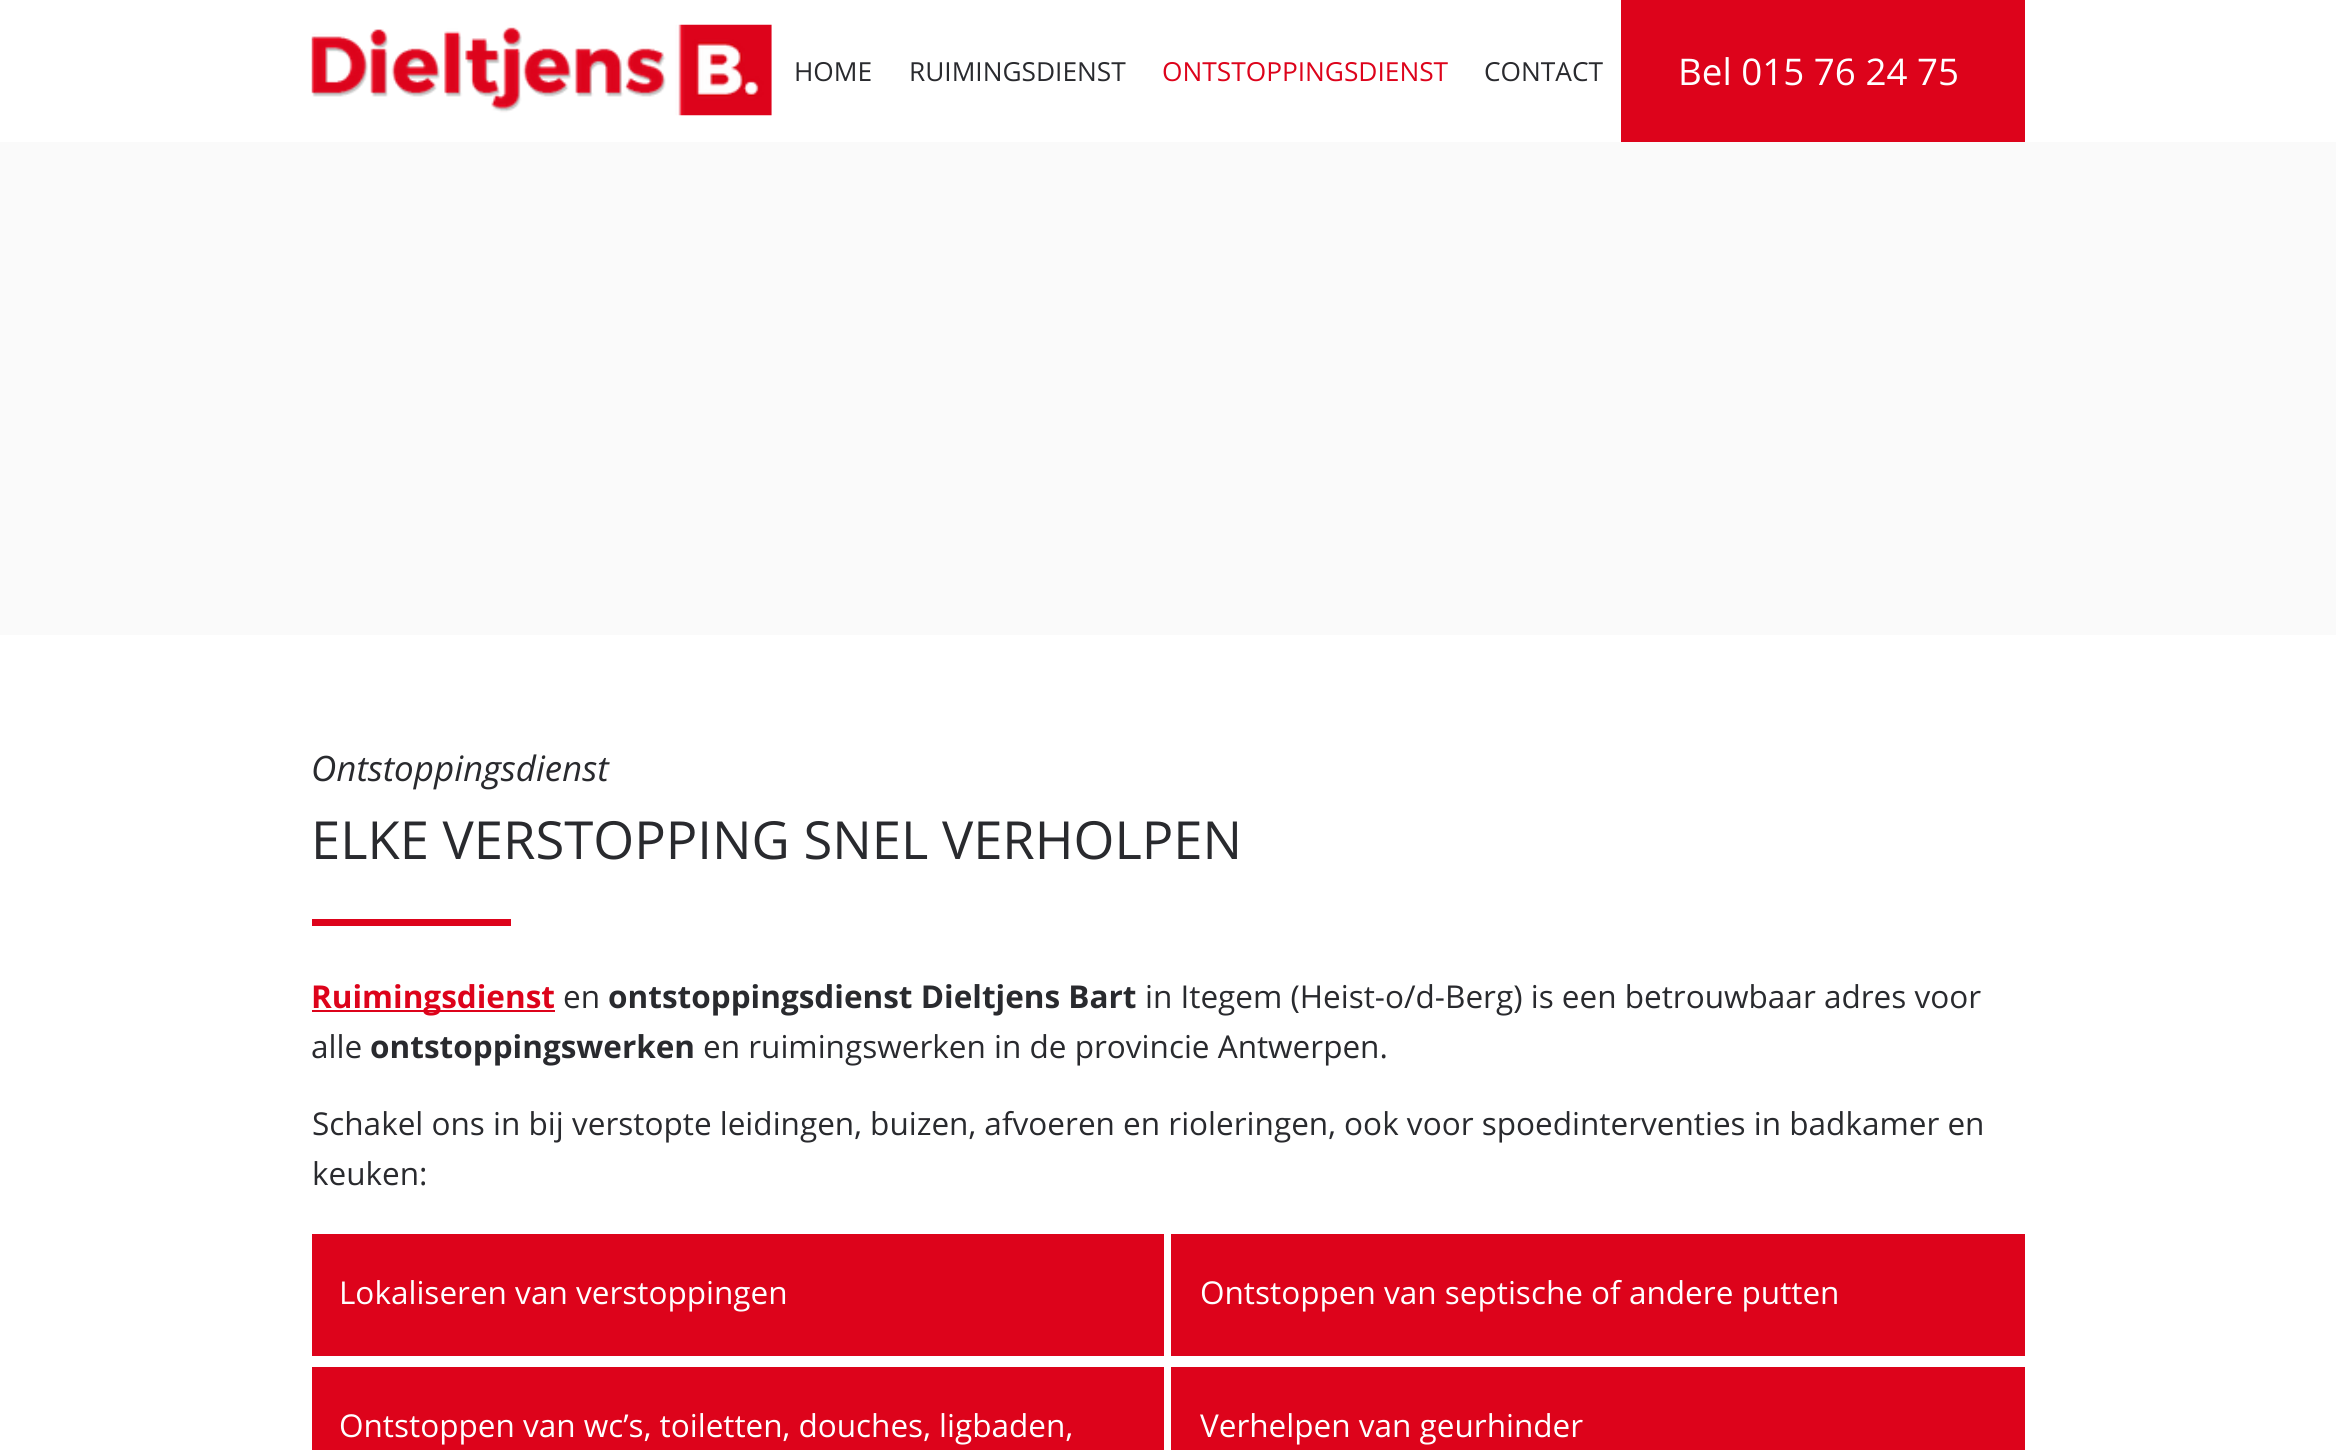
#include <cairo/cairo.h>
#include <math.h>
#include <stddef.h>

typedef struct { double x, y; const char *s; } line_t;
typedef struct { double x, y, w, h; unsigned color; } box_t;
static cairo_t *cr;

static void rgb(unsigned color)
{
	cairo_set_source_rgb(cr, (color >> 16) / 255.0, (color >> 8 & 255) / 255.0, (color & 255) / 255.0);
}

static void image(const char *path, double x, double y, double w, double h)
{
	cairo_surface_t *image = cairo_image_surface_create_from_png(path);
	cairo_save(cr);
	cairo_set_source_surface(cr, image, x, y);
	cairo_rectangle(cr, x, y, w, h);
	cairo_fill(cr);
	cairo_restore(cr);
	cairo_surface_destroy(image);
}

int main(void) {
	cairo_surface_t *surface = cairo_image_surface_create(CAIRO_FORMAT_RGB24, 2336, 1450);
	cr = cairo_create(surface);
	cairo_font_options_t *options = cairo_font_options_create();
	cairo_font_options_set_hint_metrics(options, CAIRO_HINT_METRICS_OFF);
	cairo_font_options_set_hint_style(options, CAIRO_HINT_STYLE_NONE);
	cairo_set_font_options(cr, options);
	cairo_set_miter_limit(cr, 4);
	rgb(0xffffff);
	cairo_paint(cr);
	image("img/1.png", 311, 24, 461, 92);
	{
		static const box_t items[] = {
			{1621, 0, 404, 142, 0xdd031b},
			{0, 142, 2336, 493, 0xfafafa},
			{312, 919, 199, 7, 0xdd031b},
			{312, 1010, 243, 2, 0xdd031b},
			{312, 1234, 852, 122, 0xdd031b},
			{1171, 1234, 854, 122, 0xdd031b},
			{312, 1367, 852, 83, 0xdd031b},
			{1171, 1367, 854, 83, 0xdd031b},
		};
		for (size_t i = 0; i < sizeof items / sizeof *items; i++) {
			rgb(items[i].color);
			cairo_rectangle(cr, items[i].x, items[i].y, items[i].w, items[i].h);
			cairo_fill(cr);
		}
	}
	cairo_select_font_face(cr, "Open Sans", CAIRO_FONT_SLANT_NORMAL, CAIRO_FONT_WEIGHT_NORMAL);
	cairo_set_font_size(cr, 26.25);
	rgb(0x292a2e);
	cairo_move_to(cr, 794, 81);
	cairo_show_text(cr, "HOME");
	cairo_move_to(cr, 909, 81);
	cairo_show_text(cr, "RUIMINGSDIENST");
	rgb(0xdd031b);
	cairo_move_to(cr, 1162, 81);
	cairo_show_text(cr, "ONTSTOPPINGSDIENST");
	rgb(0x292a2e);
	cairo_move_to(cr, 1484, 81);
	cairo_show_text(cr, "CONTACT");
	cairo_select_font_face(cr, "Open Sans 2", CAIRO_FONT_SLANT_NORMAL, CAIRO_FONT_WEIGHT_NORMAL);
	cairo_set_font_size(cr, 36.75);
	rgb(0xffffff);
	cairo_move_to(cr, 1678, 85);
	cairo_show_text(cr, "Bel 015 76 24 75");
	cairo_select_font_face(cr, "Open Sans", CAIRO_FONT_SLANT_ITALIC, CAIRO_FONT_WEIGHT_NORMAL);
	cairo_set_font_size(cr, 35);
	rgb(0x292a2e);
	cairo_move_to(cr, 311, 781);
	cairo_show_text(cr, "Ontstoppingsdienst");
	cairo_select_font_face(cr, "Open Sans 2", CAIRO_FONT_SLANT_NORMAL, CAIRO_FONT_WEIGHT_NORMAL);
	cairo_set_font_size(cr, 52.5);
	cairo_move_to(cr, 311, 859);
	cairo_show_text(cr, "ELKE VERSTOPPING SNEL VERHOLPEN");
	cairo_select_font_face(cr, "Open Sans", CAIRO_FONT_SLANT_NORMAL, CAIRO_FONT_WEIGHT_BOLD);
	cairo_set_font_size(cr, 31.5);
	rgb(0xdd031b);
	cairo_move_to(cr, 311, 1008);
	cairo_show_text(cr, "Ruimingsdienst");
	cairo_select_font_face(cr, "Open Sans 2", CAIRO_FONT_SLANT_NORMAL, CAIRO_FONT_WEIGHT_NORMAL);
	rgb(0x292a2e);
	cairo_move_to(cr, 563, 1008);
	cairo_show_text(cr, "en");
	cairo_select_font_face(cr, "Open Sans", CAIRO_FONT_SLANT_NORMAL, CAIRO_FONT_WEIGHT_BOLD);
	cairo_move_to(cr, 608, 1008);
	cairo_show_text(cr, "ontstoppingsdienst Dieltjens Bart");
	cairo_select_font_face(cr, "Open Sans 2", CAIRO_FONT_SLANT_NORMAL, CAIRO_FONT_WEIGHT_NORMAL);
	cairo_move_to(cr, 1145, 1008);
	cairo_show_text(cr, "in Itegem (Heist-o/d-Berg) is een betrouwbaar adres voor");
	cairo_move_to(cr, 311, 1058);
	cairo_show_text(cr, "alle");
	cairo_select_font_face(cr, "Open Sans", CAIRO_FONT_SLANT_NORMAL, CAIRO_FONT_WEIGHT_BOLD);
	cairo_move_to(cr, 370, 1058);
	cairo_show_text(cr, "ontstoppingswerken");
	cairo_select_font_face(cr, "Open Sans 2", CAIRO_FONT_SLANT_NORMAL, CAIRO_FONT_WEIGHT_NORMAL);
	{
		static const line_t items[] = {
			{703, 1058, "en ruimingswerken in de provincie Antwerpen."},
			{312, 1135, "Schakel ons in bij verstopte leidingen, buizen, afvoeren en rioleringen, ook voor spoedinterventies in badkamer en"},
			{312, 1185, "keuken:"},
		};
		for (size_t i = 0; i < sizeof items / sizeof *items; i++) {
			cairo_move_to(cr, items[i].x, items[i].y);
			cairo_show_text(cr, items[i].s);
		}
	}
	rgb(0xffffff);
	{
		static const line_t items[] = {
			{339, 1304, "Lokaliseren van verstoppingen"},
			{1200, 1304, "Ontstoppen van septische of andere putten"},
			{339, 1437, "Ontstoppen van wc’s, toiletten, douches, ligbaden,"},
			{1200, 1437, "Verhelpen van geurhinder"},
		};
		for (size_t i = 0; i < sizeof items / sizeof *items; i++) {
			cairo_move_to(cr, items[i].x, items[i].y);
			cairo_show_text(cr, items[i].s);
		}
	}
	cairo_surface_write_to_png(surface, "page.png");
	cairo_font_options_destroy(options);
	cairo_destroy(cr);
	cairo_surface_destroy(surface);
	return 0;
}
